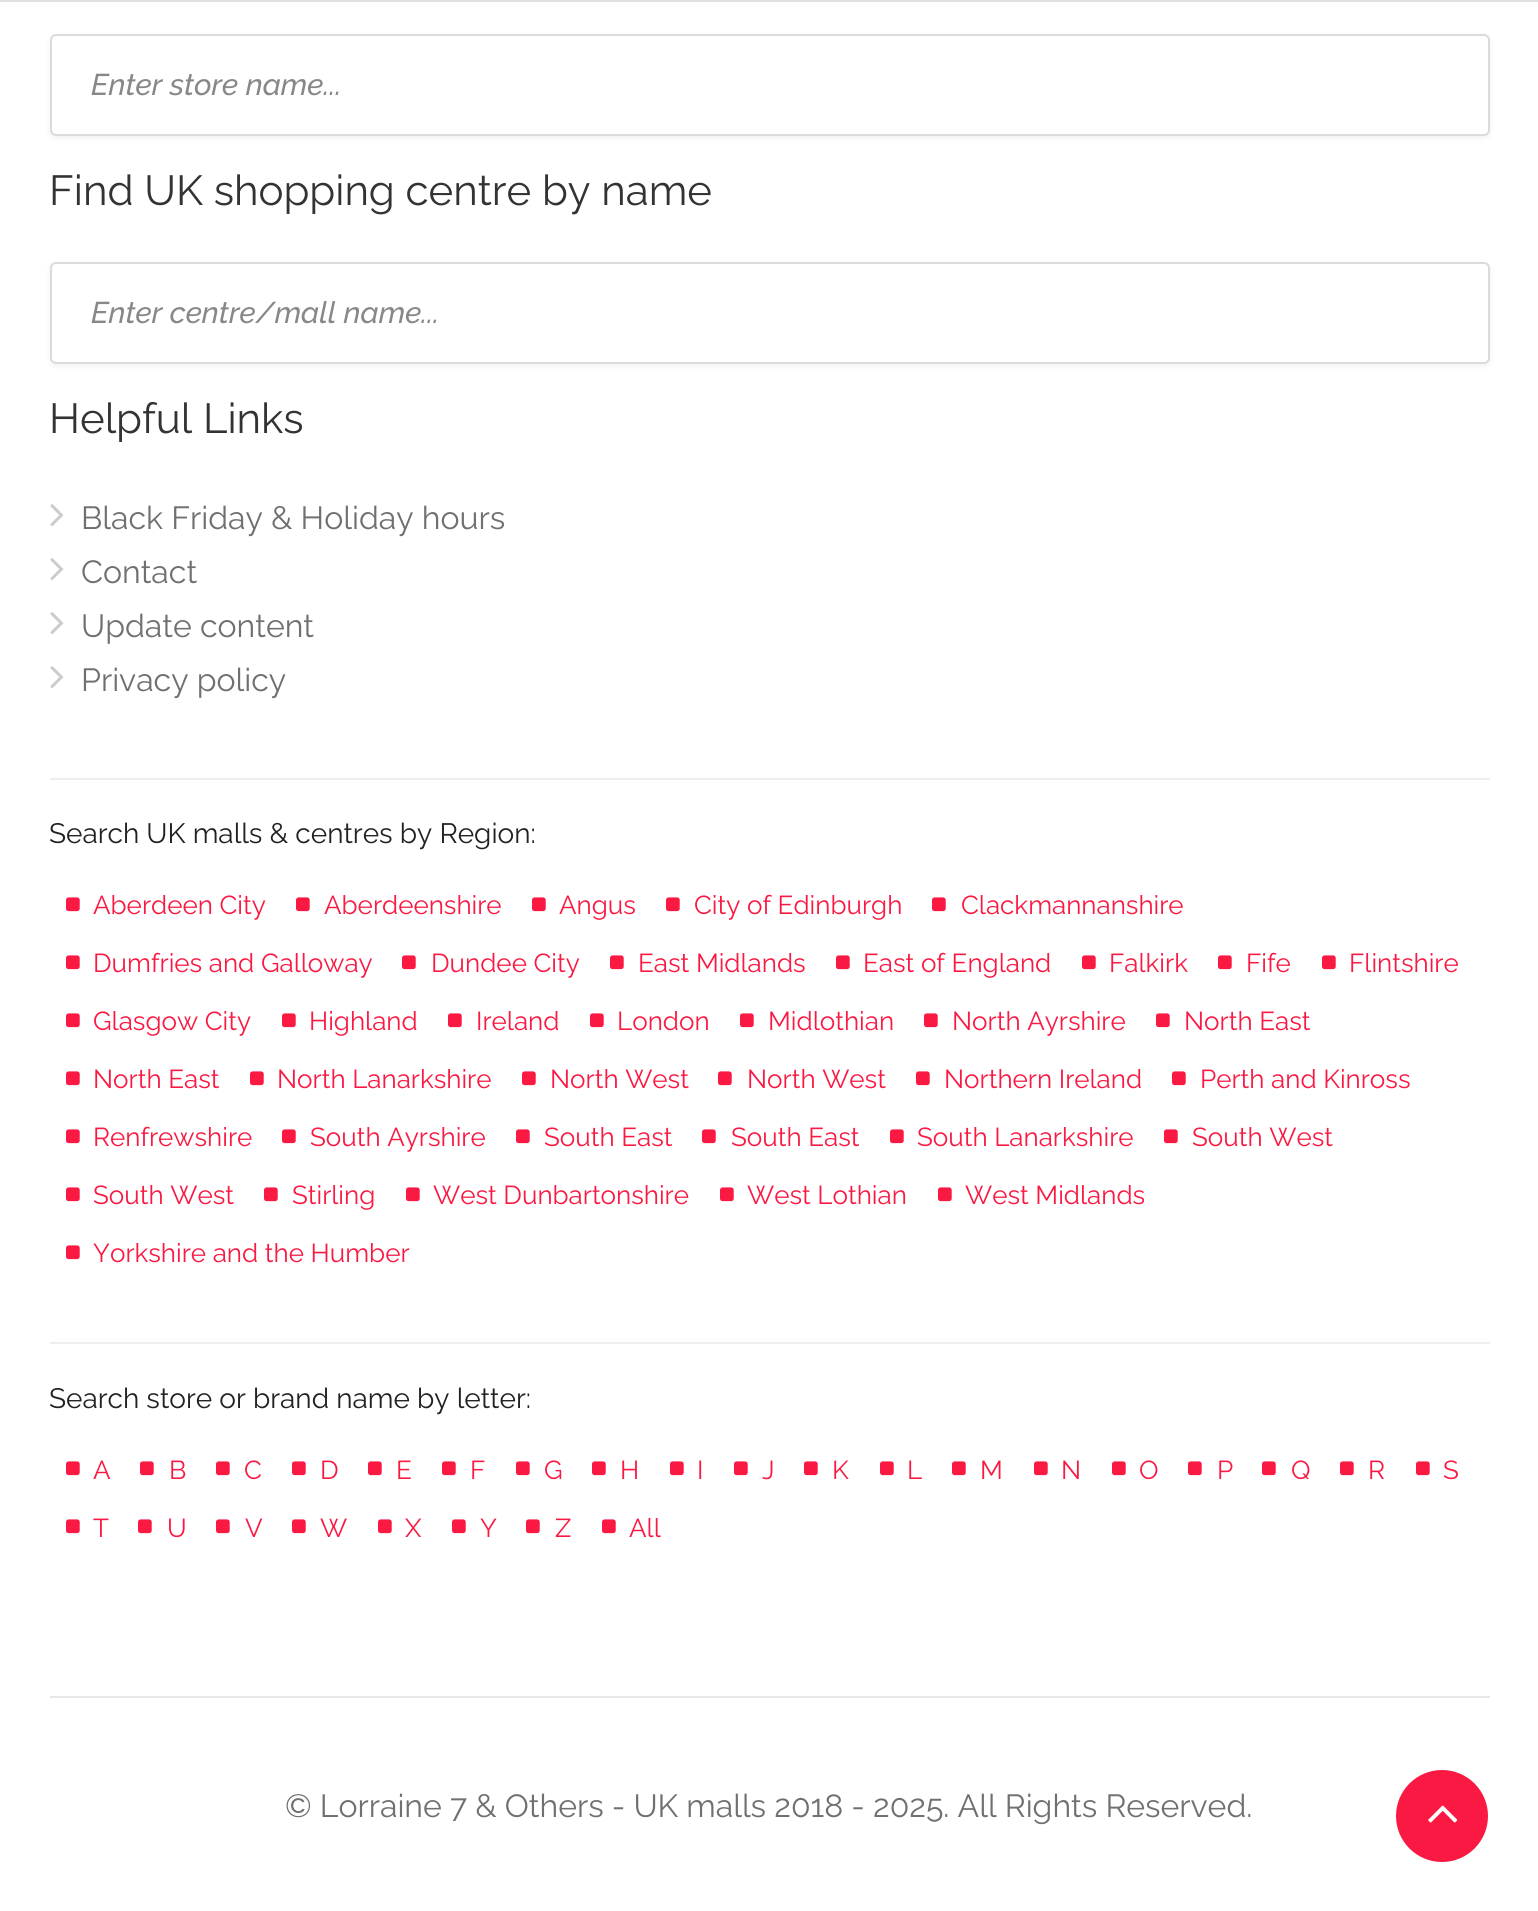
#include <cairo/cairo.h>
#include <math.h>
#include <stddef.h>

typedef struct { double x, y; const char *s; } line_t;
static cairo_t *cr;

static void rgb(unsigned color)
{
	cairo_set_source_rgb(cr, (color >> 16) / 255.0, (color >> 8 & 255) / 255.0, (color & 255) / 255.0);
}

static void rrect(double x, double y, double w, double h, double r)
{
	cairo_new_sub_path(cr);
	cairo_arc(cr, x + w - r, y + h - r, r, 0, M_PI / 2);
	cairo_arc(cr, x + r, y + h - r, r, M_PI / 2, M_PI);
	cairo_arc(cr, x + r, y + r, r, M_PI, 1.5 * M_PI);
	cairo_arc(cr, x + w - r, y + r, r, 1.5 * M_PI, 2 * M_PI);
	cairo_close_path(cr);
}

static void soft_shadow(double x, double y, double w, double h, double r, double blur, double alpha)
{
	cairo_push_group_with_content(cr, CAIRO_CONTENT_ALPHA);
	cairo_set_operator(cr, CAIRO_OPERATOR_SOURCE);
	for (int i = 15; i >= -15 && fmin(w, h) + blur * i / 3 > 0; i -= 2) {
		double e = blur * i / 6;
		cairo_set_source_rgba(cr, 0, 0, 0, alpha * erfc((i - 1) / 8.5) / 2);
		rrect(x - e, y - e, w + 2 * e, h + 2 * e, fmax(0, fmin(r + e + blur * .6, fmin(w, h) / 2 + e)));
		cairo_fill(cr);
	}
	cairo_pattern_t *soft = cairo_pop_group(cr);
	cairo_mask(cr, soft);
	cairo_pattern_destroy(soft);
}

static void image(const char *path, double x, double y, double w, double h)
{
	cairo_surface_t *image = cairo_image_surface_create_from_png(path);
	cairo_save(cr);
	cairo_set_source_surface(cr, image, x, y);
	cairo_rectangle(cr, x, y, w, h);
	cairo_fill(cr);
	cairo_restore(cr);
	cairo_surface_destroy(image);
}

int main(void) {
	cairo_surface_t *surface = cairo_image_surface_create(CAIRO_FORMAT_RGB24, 1538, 1911);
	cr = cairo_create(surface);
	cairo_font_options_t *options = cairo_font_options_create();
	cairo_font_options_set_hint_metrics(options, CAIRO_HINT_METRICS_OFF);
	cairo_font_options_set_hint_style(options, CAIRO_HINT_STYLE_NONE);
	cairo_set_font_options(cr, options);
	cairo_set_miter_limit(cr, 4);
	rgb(0xffffff);
	cairo_paint(cr);
	rgb(0xe0e0e0);
	cairo_rectangle(cr, 0, 0, 1538, 2);
	cairo_fill(cr);
	rgb(0x000000);
	soft_shadow(50, 36, 1440, 102, 6, 3, 0.06);
	rgb(0xffffff);
	rrect(51, 35, 1438, 100, 5);
	cairo_fill_preserve(cr);
	rgb(0xdbdbdb);
	cairo_stroke(cr);
	rgb(0x000000);
	soft_shadow(50, 264, 1440, 102, 6, 3, 0.06);
	rgb(0xffffff);
	rrect(51, 263, 1438, 100, 5);
	cairo_fill_preserve(cr);
	rgb(0xdbdbdb);
	cairo_stroke(cr);
	image("img/1.png", 50, 504, 14, 23);
	image("img/1.png", 50, 558, 14, 23);
	image("img/1.png", 50, 612, 14, 23);
	image("img/1.png", 50, 666, 14, 23);
	rgb(0xeeeeee);
	cairo_rectangle(cr, 50, 778, 1440, 2);
	cairo_fill(cr);
	image("img/2.png", 66, 897, 14, 15);
	image("img/2.png", 296, 897, 14, 15);
	image("img/2.png", 532, 897, 14, 15);
	image("img/2.png", 666, 897, 14, 15);
	image("img/2.png", 932, 897, 14, 15);
	image("img/2.png", 66, 955, 14, 15);
	image("img/2.png", 402, 955, 14, 15);
	image("img/2.png", 610, 955, 14, 15);
	image("img/2.png", 836, 955, 14, 15);
	image("img/2.png", 1082, 955, 14, 15);
	image("img/2.png", 1218, 955, 14, 15);
	image("img/2.png", 1322, 955, 14, 15);
	image("img/2.png", 66, 1013, 14, 15);
	image("img/2.png", 282, 1013, 14, 15);
	image("img/2.png", 448, 1013, 14, 15);
	image("img/2.png", 590, 1013, 14, 15);
	image("img/2.png", 740, 1013, 14, 15);
	image("img/2.png", 924, 1013, 14, 15);
	image("img/2.png", 1156, 1013, 14, 15);
	image("img/2.png", 66, 1071, 14, 15);
	image("img/2.png", 250, 1071, 14, 15);
	image("img/2.png", 522, 1071, 14, 15);
	image("img/2.png", 718, 1071, 14, 15);
	image("img/2.png", 916, 1071, 14, 15);
	image("img/2.png", 1172, 1071, 14, 15);
	image("img/2.png", 66, 1129, 14, 15);
	image("img/2.png", 282, 1129, 14, 15);
	image("img/2.png", 516, 1129, 14, 15);
	image("img/2.png", 702, 1129, 14, 15);
	image("img/2.png", 890, 1129, 14, 15);
	image("img/2.png", 1164, 1129, 14, 15);
	image("img/2.png", 66, 1187, 14, 15);
	image("img/2.png", 264, 1187, 14, 15);
	image("img/2.png", 406, 1187, 14, 15);
	image("img/2.png", 720, 1187, 14, 15);
	image("img/2.png", 938, 1187, 14, 15);
	image("img/2.png", 66, 1245, 14, 15);
	cairo_rectangle(cr, 50, 1342, 1440, 2);
	cairo_fill(cr);
	image("img/2.png", 66, 1461, 14, 15);
	image("img/2.png", 140, 1461, 14, 15);
	image("img/2.png", 216, 1461, 14, 15);
	image("img/2.png", 292, 1461, 14, 15);
	image("img/2.png", 368, 1461, 14, 15);
	image("img/2.png", 442, 1461, 14, 15);
	image("img/2.png", 516, 1461, 14, 15);
	image("img/2.png", 592, 1461, 14, 15);
	image("img/2.png", 670, 1461, 14, 15);
	image("img/2.png", 734, 1461, 14, 15);
	image("img/2.png", 804, 1461, 14, 15);
	image("img/2.png", 880, 1461, 14, 15);
	image("img/2.png", 952, 1461, 14, 15);
	image("img/2.png", 1034, 1461, 14, 15);
	image("img/2.png", 1112, 1461, 14, 15);
	image("img/2.png", 1188, 1461, 14, 15);
	image("img/2.png", 1262, 1461, 14, 15);
	image("img/2.png", 1340, 1461, 14, 15);
	image("img/2.png", 1416, 1461, 14, 15);
	image("img/2.png", 66, 1519, 14, 15);
	image("img/2.png", 138, 1519, 14, 15);
	image("img/2.png", 216, 1519, 14, 15);
	image("img/2.png", 292, 1519, 14, 15);
	image("img/2.png", 378, 1519, 14, 15);
	image("img/2.png", 452, 1519, 14, 15);
	image("img/2.png", 526, 1519, 14, 15);
	image("img/2.png", 602, 1519, 14, 15);
	rgb(0xe8e8e8);
	cairo_rectangle(cr, 50, 1696, 1440, 2);
	cairo_fill(cr);
	rgb(0xf91942);
	cairo_arc(cr, 1442, 1816, 46, 0, 2 * M_PI);
	cairo_fill(cr);
	image("img/3.png", 1428, 1805, 30, 18);
	cairo_select_font_face(cr, "Raleway Medium", CAIRO_FONT_SLANT_ITALIC, CAIRO_FONT_WEIGHT_NORMAL);
	cairo_set_font_size(cr, 30);
	rgb(0x888888);
	cairo_move_to(cr, 91, 95);
	cairo_show_text(cr, "Enter store name...");
	cairo_select_font_face(cr, "Raleway", CAIRO_FONT_SLANT_NORMAL, CAIRO_FONT_WEIGHT_NORMAL);
	cairo_set_font_size(cr, 42);
	rgb(0x333333);
	cairo_move_to(cr, 49, 205);
	cairo_show_text(cr, "Find UK shopping centre by name");
	cairo_select_font_face(cr, "Raleway Medium", CAIRO_FONT_SLANT_ITALIC, CAIRO_FONT_WEIGHT_NORMAL);
	cairo_set_font_size(cr, 30);
	rgb(0x888888);
	cairo_move_to(cr, 91, 323);
	cairo_show_text(cr, "Enter centre/mall name...");
	cairo_select_font_face(cr, "Raleway", CAIRO_FONT_SLANT_NORMAL, CAIRO_FONT_WEIGHT_NORMAL);
	cairo_set_font_size(cr, 42);
	rgb(0x333333);
	cairo_move_to(cr, 49, 433);
	cairo_show_text(cr, "Helpful Links");
	cairo_set_font_size(cr, 32);
	rgb(0x707070);
	{
		static const line_t items[] = {
			{81, 529, "Black Friday & Holiday hours"},
			{81, 583, "Contact"},
			{81, 637, "Update content"},
			{81, 691, "Privacy policy"},
		};
		for (size_t i = 0; i < sizeof items / sizeof *items; i++) {
			cairo_move_to(cr, items[i].x, items[i].y);
			cairo_show_text(cr, items[i].s);
		}
	}
	cairo_set_font_size(cr, 28);
	rgb(0x222222);
	cairo_move_to(cr, 49, 843);
	cairo_show_text(cr, "Search UK malls & centres by Region:");
	cairo_set_font_size(cr, 26);
	rgb(0xf91942);
	{
		static const line_t items[] = {
			{93, 914, "Aberdeen City"},
			{324, 914, "Aberdeenshire"},
			{559, 914, "Angus"},
			{694, 914, "City of Edinburgh"},
			{961, 914, "Clackmannanshire"},
			{93, 972, "Dumfries and Galloway"},
			{431, 972, "Dundee City"},
			{638, 972, "East Midlands"},
			{863, 972, "East of England"},
			{1109, 972, "Falkirk"},
			{1246, 972, "Fife"},
			{1349, 972, "Flintshire"},
			{93, 1030, "Glasgow City"},
			{309, 1030, "Highland"},
			{476, 1030, "Ireland"},
			{617, 1030, "London"},
			{768, 1030, "Midlothian"},
			{952, 1030, "North Ayrshire"},
			{1184, 1030, "North East"},
			{93, 1088, "North East"},
			{277, 1088, "North Lanarkshire"},
			{550, 1088, "North West"},
			{747, 1088, "North West"},
			{944, 1088, "Northern Ireland"},
			{1200, 1088, "Perth and Kinross"},
			{93, 1146, "Renfrewshire"},
			{310, 1146, "South Ayrshire"},
			{544, 1146, "South East"},
			{731, 1146, "South East"},
			{917, 1146, "South Lanarkshire"},
			{1192, 1146, "South West"},
			{93, 1204, "South West"},
			{292, 1204, "Stirling"},
			{433, 1204, "West Dunbartonshire"},
			{747, 1204, "West Lothian"},
			{965, 1204, "West Midlands"},
			{93, 1262, "Yorkshire and the Humber"},
		};
		for (size_t i = 0; i < sizeof items / sizeof *items; i++) {
			cairo_move_to(cr, items[i].x, items[i].y);
			cairo_show_text(cr, items[i].s);
		}
	}
	cairo_set_font_size(cr, 28);
	rgb(0x222222);
	cairo_move_to(cr, 49, 1408);
	cairo_show_text(cr, "Search store or brand name by letter:");
	cairo_set_font_size(cr, 26);
	rgb(0xf91942);
	{
		static const line_t items[] = {
			{93, 1479, "A"},
			{169, 1479, "B"},
			{244, 1479, "C"},
			{320, 1479, "D"},
			{396, 1479, "E"},
			{470, 1479, "F"},
			{544, 1479, "G"},
			{620, 1479, "H"},
			{697, 1479, "I"},
			{762, 1479, "J"},
			{832, 1479, "K"},
			{907, 1479, "L"},
			{980, 1479, "M"},
			{1061, 1479, "N"},
			{1139, 1479, "O"},
			{1217, 1479, "P"},
			{1291, 1479, "Q"},
			{1368, 1479, "R"},
			{1443, 1479, "S"},
			{93, 1537, "T"},
			{167, 1537, "U"},
			{245, 1537, "V"},
			{320, 1537, "W"},
			{405, 1537, "X"},
			{480, 1537, "Y"},
			{555, 1537, "Z"},
			{629, 1537, "All"},
		};
		for (size_t i = 0; i < sizeof items / sizeof *items; i++) {
			cairo_move_to(cr, items[i].x, items[i].y);
			cairo_show_text(cr, items[i].s);
		}
	}
	cairo_set_font_size(cr, 32);
	rgb(0x707070);
	cairo_move_to(cr, 285, 1817);
	cairo_show_text(cr, "© Lorraine 7 & Others - UK malls 2018 - 2025. All Rights Reserved.");
	cairo_surface_write_to_png(surface, "page.png");
	cairo_font_options_destroy(options);
	cairo_destroy(cr);
	cairo_surface_destroy(surface);
	return 0;
}
